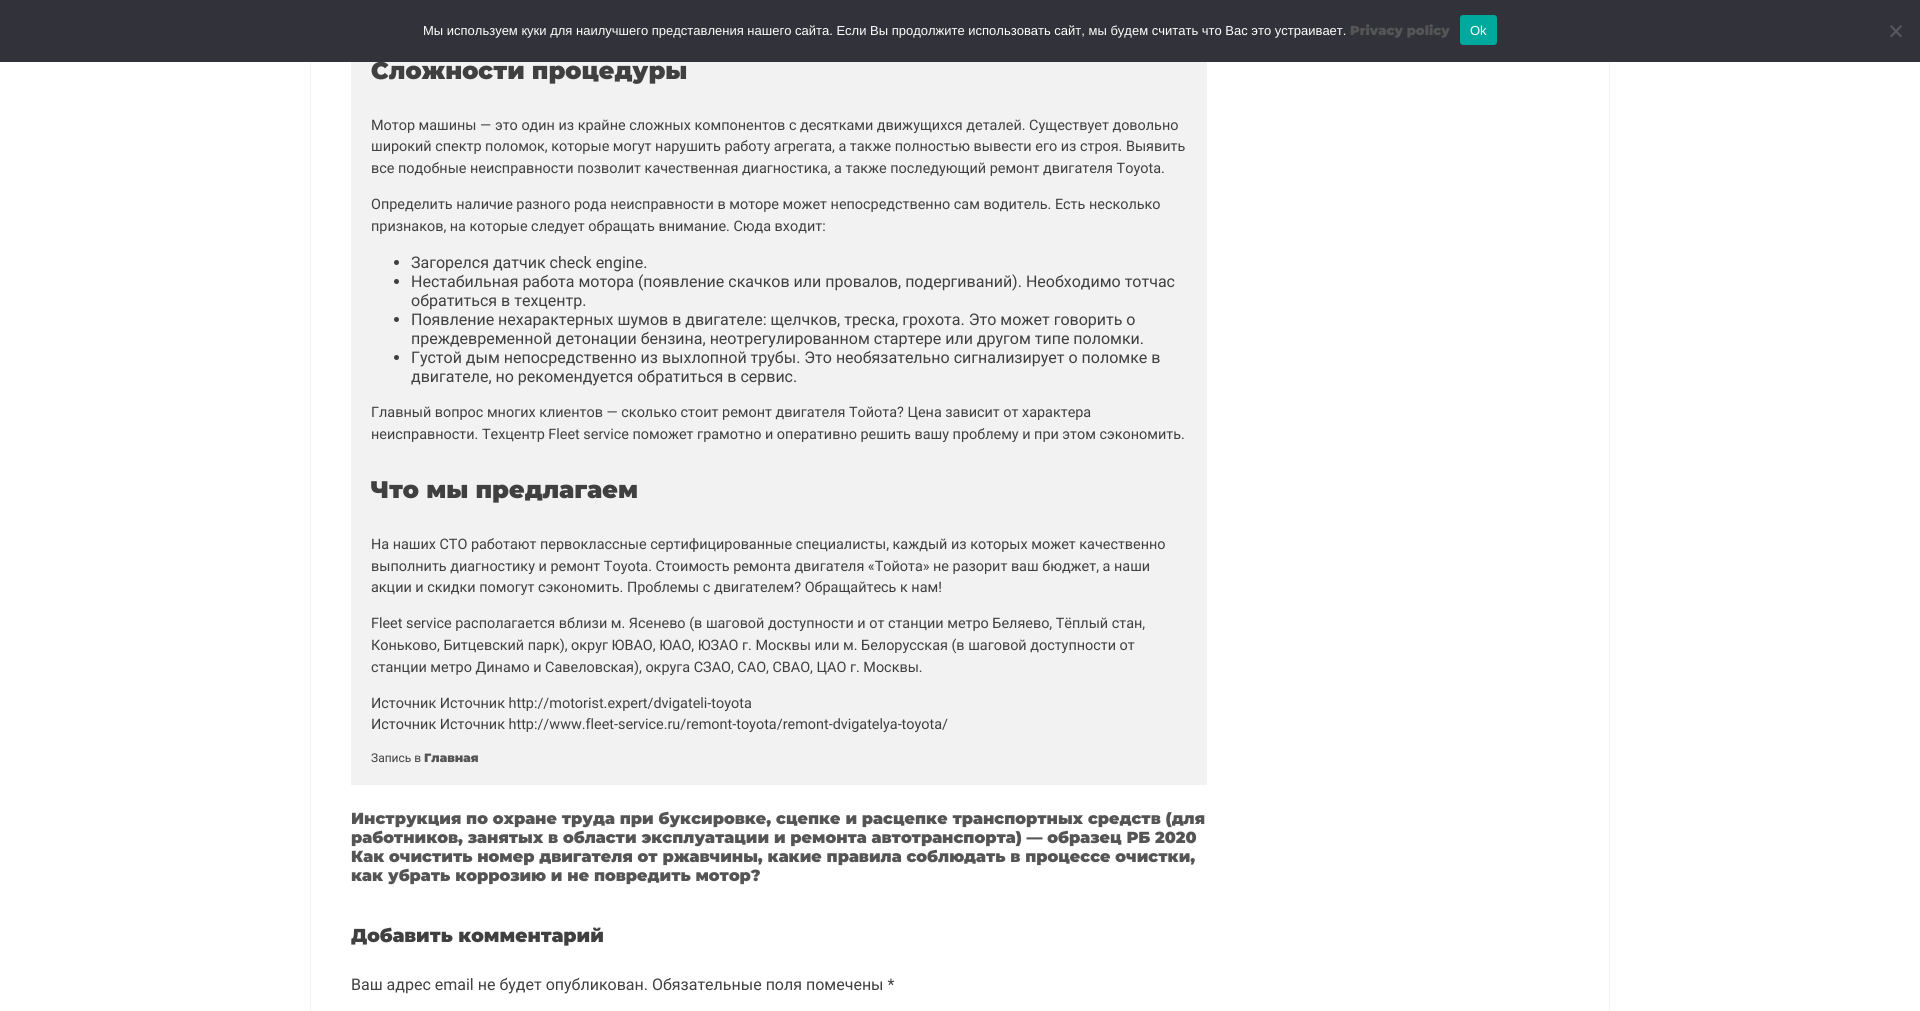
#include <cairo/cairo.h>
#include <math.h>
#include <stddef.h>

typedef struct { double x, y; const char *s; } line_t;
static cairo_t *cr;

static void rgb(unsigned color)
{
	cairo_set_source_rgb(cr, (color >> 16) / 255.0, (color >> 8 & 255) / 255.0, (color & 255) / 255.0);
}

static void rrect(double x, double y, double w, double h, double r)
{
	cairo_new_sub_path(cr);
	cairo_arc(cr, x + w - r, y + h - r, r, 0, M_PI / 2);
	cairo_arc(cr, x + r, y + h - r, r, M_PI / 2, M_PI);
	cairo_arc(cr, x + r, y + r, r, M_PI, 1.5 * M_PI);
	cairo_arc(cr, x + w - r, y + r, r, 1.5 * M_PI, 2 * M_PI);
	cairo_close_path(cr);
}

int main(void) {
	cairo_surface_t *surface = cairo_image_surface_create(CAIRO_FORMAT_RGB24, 1920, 1011);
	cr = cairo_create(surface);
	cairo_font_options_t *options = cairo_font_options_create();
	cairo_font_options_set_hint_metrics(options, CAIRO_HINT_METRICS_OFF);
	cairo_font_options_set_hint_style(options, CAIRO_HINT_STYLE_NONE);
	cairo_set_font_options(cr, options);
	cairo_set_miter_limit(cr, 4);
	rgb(0xffffff);
	cairo_paint(cr);
	cairo_rectangle(cr, 310.5, -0.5, 1299, 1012);
	rgb(0xf2f2f2);
	cairo_set_line_width(cr, 1);
	cairo_stroke(cr);
	cairo_rectangle(cr, 351, 62, 856, 723);
	cairo_fill(cr);
	rgb(0x404040);
	cairo_arc(cr, 396.5, 262.5, 2.5, 0, 2 * M_PI);
	cairo_fill(cr);
	cairo_arc(cr, 396.5, 281.5, 2.5, 0, 2 * M_PI);
	cairo_fill(cr);
	cairo_arc(cr, 396.5, 319.5, 2.5, 0, 2 * M_PI);
	cairo_fill(cr);
	cairo_arc(cr, 396.5, 357.5, 2.5, 0, 2 * M_PI);
	cairo_fill(cr);
	cairo_select_font_face(cr, "Montserrat Black", CAIRO_FONT_SLANT_NORMAL, CAIRO_FONT_WEIGHT_NORMAL);
	cairo_set_font_size(cr, 24);
	cairo_move_to(cr, 371, 79);
	cairo_show_text(cr, "Сложности процедуры");
	rgb(0x32323a);
	cairo_rectangle(cr, 0, 0, 1920, 62);
	cairo_fill(cr);
	rgb(0x59595d);
	cairo_new_path(cr);
	cairo_move_to(cr, 1900.5, 25);
	cairo_line_to(cr, 1902, 26.5);
	cairo_line_to(cr, 1891.5, 37.5);
	cairo_line_to(cr, 1890, 36);
	cairo_close_path(cr);
	cairo_fill(cr);
	cairo_new_path(cr);
	cairo_move_to(cr, 1890, 26.5);
	cairo_line_to(cr, 1891.5, 25);
	cairo_line_to(cr, 1902, 36);
	cairo_line_to(cr, 1900.5, 37.5);
	cairo_close_path(cr);
	cairo_fill(cr);
	rgb(0x00a99d);
	rrect(1460, 15, 37, 30, 3);
	cairo_fill(cr);
	cairo_select_font_face(cr, "Liberation Sans", CAIRO_FONT_SLANT_NORMAL, CAIRO_FONT_WEIGHT_NORMAL);
	cairo_set_font_size(cr, 13);
	rgb(0xffffff);
	cairo_move_to(cr, 1470, 35);
	cairo_show_text(cr, "Ok");
	cairo_select_font_face(cr, "Montserrat Black", CAIRO_FONT_SLANT_NORMAL, CAIRO_FONT_WEIGHT_NORMAL);
	rgb(0x555555);
	cairo_move_to(cr, 1350, 35);
	cairo_show_text(cr, "Privacy policy");
	cairo_select_font_face(cr, "Liberation Sans", CAIRO_FONT_SLANT_NORMAL, CAIRO_FONT_WEIGHT_NORMAL);
	rgb(0xffffff);
	cairo_move_to(cr, 423, 35);
	cairo_show_text(cr, "Мы используем куки для наилучшего представления нашего сайта. Если Вы продолжите использовать сайт, мы будем считать что Вас это устраивает.");
	cairo_select_font_face(cr, "Roboto", CAIRO_FONT_SLANT_NORMAL, CAIRO_FONT_WEIGHT_NORMAL);
	cairo_set_font_size(cr, 14.4);
	rgb(0x404040);
	{
		static const line_t items[] = {
			{371, 130, "Мотор машины — это один из крайне сложных компонентов с десятками движущихся деталей. Существует довольно"},
			{371, 151, "широкий спектр поломок, которые могут нарушить работу агрегата, а также полностью вывести его из строя. Выявить"},
			{371, 173, "все подобные неисправности позволит качественная диагностика, а также последующий ремонт двигателя Toyota."},
			{371, 209, "Определить наличие разного рода неисправности в моторе может непосредственно сам водитель. Есть несколько"},
			{371, 231, "признаков, на которые следует обращать внимание. Сюда входит:"},
		};
		for (size_t i = 0; i < sizeof items / sizeof *items; i++) {
			cairo_move_to(cr, items[i].x, items[i].y);
			cairo_show_text(cr, items[i].s);
		}
	}
	cairo_set_font_size(cr, 16);
	{
		static const line_t items[] = {
			{411, 268, "Загорелся датчик check engine."},
			{411, 287, "Нестабильная работа мотора (появление скачков или провалов, подергиваний). Необходимо тотчас"},
			{411, 306, "обратиться в техцентр."},
			{411, 325, "Появление нехарактерных шумов в двигателе: щелчков, треска, грохота. Это может говорить о"},
			{411, 344, "преждевременной детонации бензина, неотрегулированном стартере или другом типе поломки."},
			{411, 363, "Густой дым непосредственно из выхлопной трубы. Это необязательно сигнализирует о поломке в"},
			{411, 382, "двигателе, но рекомендуется обратиться в сервис."},
		};
		for (size_t i = 0; i < sizeof items / sizeof *items; i++) {
			cairo_move_to(cr, items[i].x, items[i].y);
			cairo_show_text(cr, items[i].s);
		}
	}
	cairo_set_font_size(cr, 14.4);
	cairo_move_to(cr, 371, 417);
	cairo_show_text(cr, "Главный вопрос многих клиентов — сколько стоит ремонт двигателя Тойота? Цена зависит от характера");
	cairo_move_to(cr, 371, 439);
	cairo_show_text(cr, "неисправности. Техцентр Fleet service поможет грамотно и оперативно решить вашу проблему и при этом сэкономить.");
	cairo_select_font_face(cr, "Montserrat Black", CAIRO_FONT_SLANT_NORMAL, CAIRO_FONT_WEIGHT_NORMAL);
	cairo_set_font_size(cr, 24);
	cairo_move_to(cr, 371, 498);
	cairo_show_text(cr, "Что мы предлагаем");
	cairo_select_font_face(cr, "Roboto", CAIRO_FONT_SLANT_NORMAL, CAIRO_FONT_WEIGHT_NORMAL);
	cairo_set_font_size(cr, 14.4);
	{
		static const line_t items[] = {
			{371, 549, "На наших СТО работают первоклассные сертифицированные специалисты, каждый из которых может качественно"},
			{371, 571, "выполнить диагностику и ремонт Toyota. Стоимость ремонта двигателя «Тойота» не разорит ваш бюджет, а наши"},
			{371, 592, "акции и скидки помогут сэкономить. Проблемы с двигателем? Обращайтесь к нам!"},
			{371, 628, "Fleet service располагается вблизи м. Ясенево (в шаговой доступности и от станции метро Беляево, Тёплый стан,"},
			{371, 650, "Коньково, Битцевский парк), округ ЮВАО, ЮАО, ЮЗАО г. Москвы или м. Белорусская (в шаговой доступности от"},
			{371, 672, "станции метро Динамо и Савеловская), округа СЗАО, САО, СВАО, ЦАО г. Москвы."},
			{371, 708, "Источник Источник http://motorist.expert/dvigateli-toyota"},
			{371, 729, "Источник Источник http://www.fleet-service.ru/remont-toyota/remont-dvigatelya-toyota/"},
		};
		for (size_t i = 0; i < sizeof items / sizeof *items; i++) {
			cairo_move_to(cr, items[i].x, items[i].y);
			cairo_show_text(cr, items[i].s);
		}
	}
	cairo_set_font_size(cr, 12);
	cairo_move_to(cr, 371, 762);
	cairo_show_text(cr, "Запись в");
	cairo_select_font_face(cr, "Montserrat Black", CAIRO_FONT_SLANT_NORMAL, CAIRO_FONT_WEIGHT_NORMAL);
	rgb(0x555555);
	cairo_move_to(cr, 424, 762);
	cairo_show_text(cr, "Главная");
	cairo_set_font_size(cr, 16);
	{
		static const line_t items[] = {
			{351, 824, "Инструкция по охране труда при буксировке, сцепке и расцепке транспортных средств (для"},
			{351, 843, "работников, занятых в области эксплуатации и ремонта автотранспорта) — образец РБ 2020"},
			{351, 862, "Как очистить номер двигателя от ржавчины, какие правила соблюдать в процессе очистки,"},
			{351, 881, "как убрать коррозию и не повредить мотор?"},
		};
		for (size_t i = 0; i < sizeof items / sizeof *items; i++) {
			cairo_move_to(cr, items[i].x, items[i].y);
			cairo_show_text(cr, items[i].s);
		}
	}
	cairo_set_font_size(cr, 18.75);
	rgb(0x404040);
	cairo_move_to(cr, 351, 942);
	cairo_show_text(cr, "Добавить комментарий");
	cairo_select_font_face(cr, "Roboto", CAIRO_FONT_SLANT_NORMAL, CAIRO_FONT_WEIGHT_NORMAL);
	cairo_set_font_size(cr, 16);
	cairo_move_to(cr, 351, 990);
	cairo_show_text(cr, "Ваш адрес email не будет опубликован. Обязательные поля помечены *");
	cairo_surface_write_to_png(surface, "page.png");
	cairo_font_options_destroy(options);
	cairo_destroy(cr);
	cairo_surface_destroy(surface);
	return 0;
}
